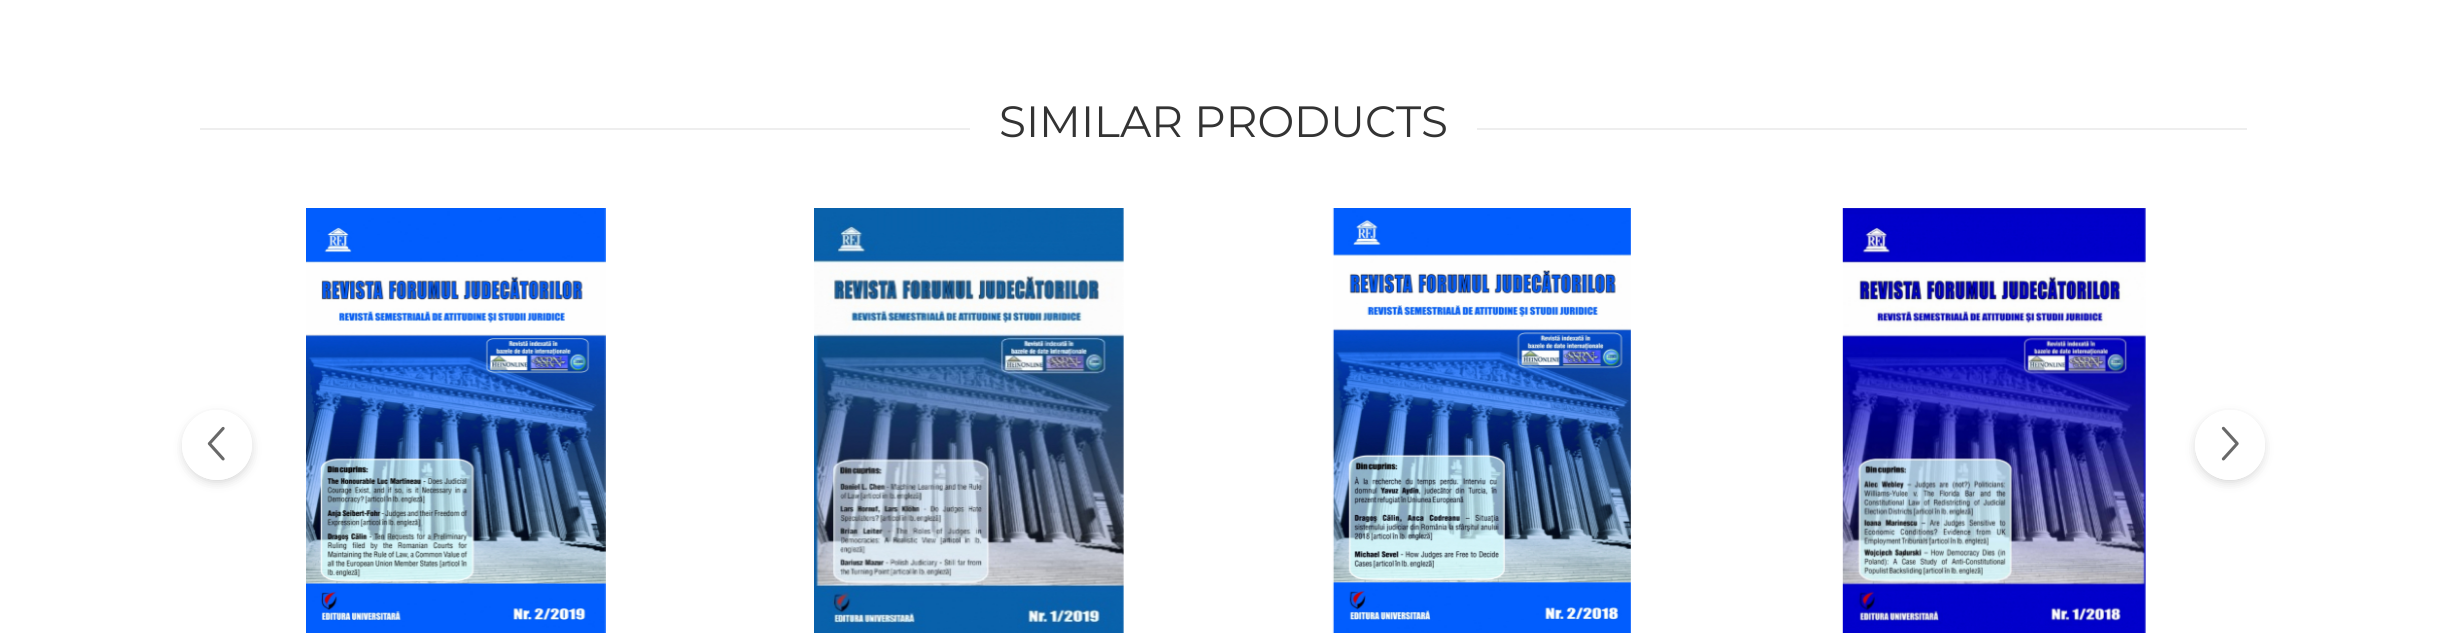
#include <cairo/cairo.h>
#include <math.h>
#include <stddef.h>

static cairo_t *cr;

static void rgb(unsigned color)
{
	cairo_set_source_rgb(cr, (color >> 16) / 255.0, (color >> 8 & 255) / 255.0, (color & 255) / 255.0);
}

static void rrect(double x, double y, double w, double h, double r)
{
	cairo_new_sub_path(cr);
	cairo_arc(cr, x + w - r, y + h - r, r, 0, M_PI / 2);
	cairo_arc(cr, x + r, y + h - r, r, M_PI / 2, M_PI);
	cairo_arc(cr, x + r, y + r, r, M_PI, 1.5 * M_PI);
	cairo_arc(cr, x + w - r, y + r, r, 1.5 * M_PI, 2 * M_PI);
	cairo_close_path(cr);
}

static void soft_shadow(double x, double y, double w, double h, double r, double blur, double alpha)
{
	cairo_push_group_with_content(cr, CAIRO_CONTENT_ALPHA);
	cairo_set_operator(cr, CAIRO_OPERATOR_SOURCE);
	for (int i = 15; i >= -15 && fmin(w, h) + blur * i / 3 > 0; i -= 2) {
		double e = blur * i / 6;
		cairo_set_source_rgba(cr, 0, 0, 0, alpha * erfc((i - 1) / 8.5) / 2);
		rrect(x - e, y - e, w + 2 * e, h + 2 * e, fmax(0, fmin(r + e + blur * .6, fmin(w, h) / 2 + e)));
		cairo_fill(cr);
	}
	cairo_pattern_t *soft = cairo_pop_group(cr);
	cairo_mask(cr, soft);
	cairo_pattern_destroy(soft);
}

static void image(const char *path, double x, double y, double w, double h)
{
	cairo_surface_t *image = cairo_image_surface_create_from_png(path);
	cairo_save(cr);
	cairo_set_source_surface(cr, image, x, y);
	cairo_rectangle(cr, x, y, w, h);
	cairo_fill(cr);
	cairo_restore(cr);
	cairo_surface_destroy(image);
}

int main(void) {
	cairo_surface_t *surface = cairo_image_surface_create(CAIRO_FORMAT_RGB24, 2446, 633);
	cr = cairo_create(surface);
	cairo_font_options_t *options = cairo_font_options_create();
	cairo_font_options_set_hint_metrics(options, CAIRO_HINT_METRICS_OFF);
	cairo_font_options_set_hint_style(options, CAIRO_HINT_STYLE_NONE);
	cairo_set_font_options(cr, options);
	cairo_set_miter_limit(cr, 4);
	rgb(0xffffff);
	cairo_paint(cr);
	rgb(0xeeeeee);
	cairo_rectangle(cr, 200, 128, 2047, 2);
	cairo_fill(cr);
	rgb(0xffffff);
	cairo_rectangle(cr, 970, 128, 507, 2);
	cairo_fill(cr);
	image("img/1.png", 306, 208, 300, 425);
	image("img/2.png", 814, 208, 310, 425);
	image("img/3.png", 1332, 208, 299, 425);
	image("img/4.png", 1842, 208, 304, 425);
	cairo_save(cr);
	cairo_set_fill_rule(cr, CAIRO_FILL_RULE_EVEN_ODD);
	cairo_new_path(cr);
	cairo_move_to(cr, 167, 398);
	cairo_line_to(cr, 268, 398);
	cairo_line_to(cr, 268, 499);
	cairo_line_to(cr, 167, 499);
	cairo_close_path(cr);
	cairo_move_to(cr, 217, 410);
	cairo_curve_to(cr, 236.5, 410, 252, 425.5, 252, 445);
	cairo_curve_to(cr, 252, 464.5, 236.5, 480, 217, 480);
	cairo_curve_to(cr, 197.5, 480, 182, 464.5, 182, 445);
	cairo_curve_to(cr, 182, 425.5, 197.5, 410, 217, 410);
	cairo_close_path(cr);
	cairo_clip(cr);
	rgb(0x333333);
	soft_shadow(186, 417, 63, 63, 31.5, 6, 0.3);
	cairo_restore(cr);
	cairo_set_source_rgba(cr, 1, 1, 1, 0.8);
	cairo_arc(cr, 217, 445, 35, 0, 2 * M_PI);
	cairo_fill(cr);
	image("img/5.png", 207, 426, 18, 35);
	cairo_save(cr);
	cairo_set_fill_rule(cr, CAIRO_FILL_RULE_EVEN_ODD);
	cairo_new_path(cr);
	cairo_move_to(cr, 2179, 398);
	cairo_line_to(cr, 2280, 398);
	cairo_line_to(cr, 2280, 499);
	cairo_line_to(cr, 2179, 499);
	cairo_close_path(cr);
	cairo_move_to(cr, 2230, 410);
	cairo_curve_to(cr, 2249.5, 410, 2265, 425.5, 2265, 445);
	cairo_curve_to(cr, 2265, 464.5, 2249.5, 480, 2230, 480);
	cairo_curve_to(cr, 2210.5, 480, 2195, 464.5, 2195, 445);
	cairo_curve_to(cr, 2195, 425.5, 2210.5, 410, 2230, 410);
	cairo_close_path(cr);
	cairo_clip(cr);
	rgb(0x333333);
	soft_shadow(2198, 417, 63, 63, 31.5, 6, 0.3);
	cairo_restore(cr);
	cairo_arc(cr, 2230, 445, 35, 0, 2 * M_PI);
	cairo_fill(cr);
	image("img/6.png", 2221, 426, 18, 35);
	cairo_select_font_face(cr, "Montserrat", CAIRO_FONT_SLANT_NORMAL, CAIRO_FONT_WEIGHT_NORMAL);
	cairo_set_font_size(cr, 43.75);
	rgb(0x333333);
	cairo_move_to(cr, 999, 137);
	cairo_show_text(cr, "SIMILAR PRODUCTS");
	cairo_surface_write_to_png(surface, "page.png");
	cairo_font_options_destroy(options);
	cairo_destroy(cr);
	cairo_surface_destroy(surface);
	return 0;
}
